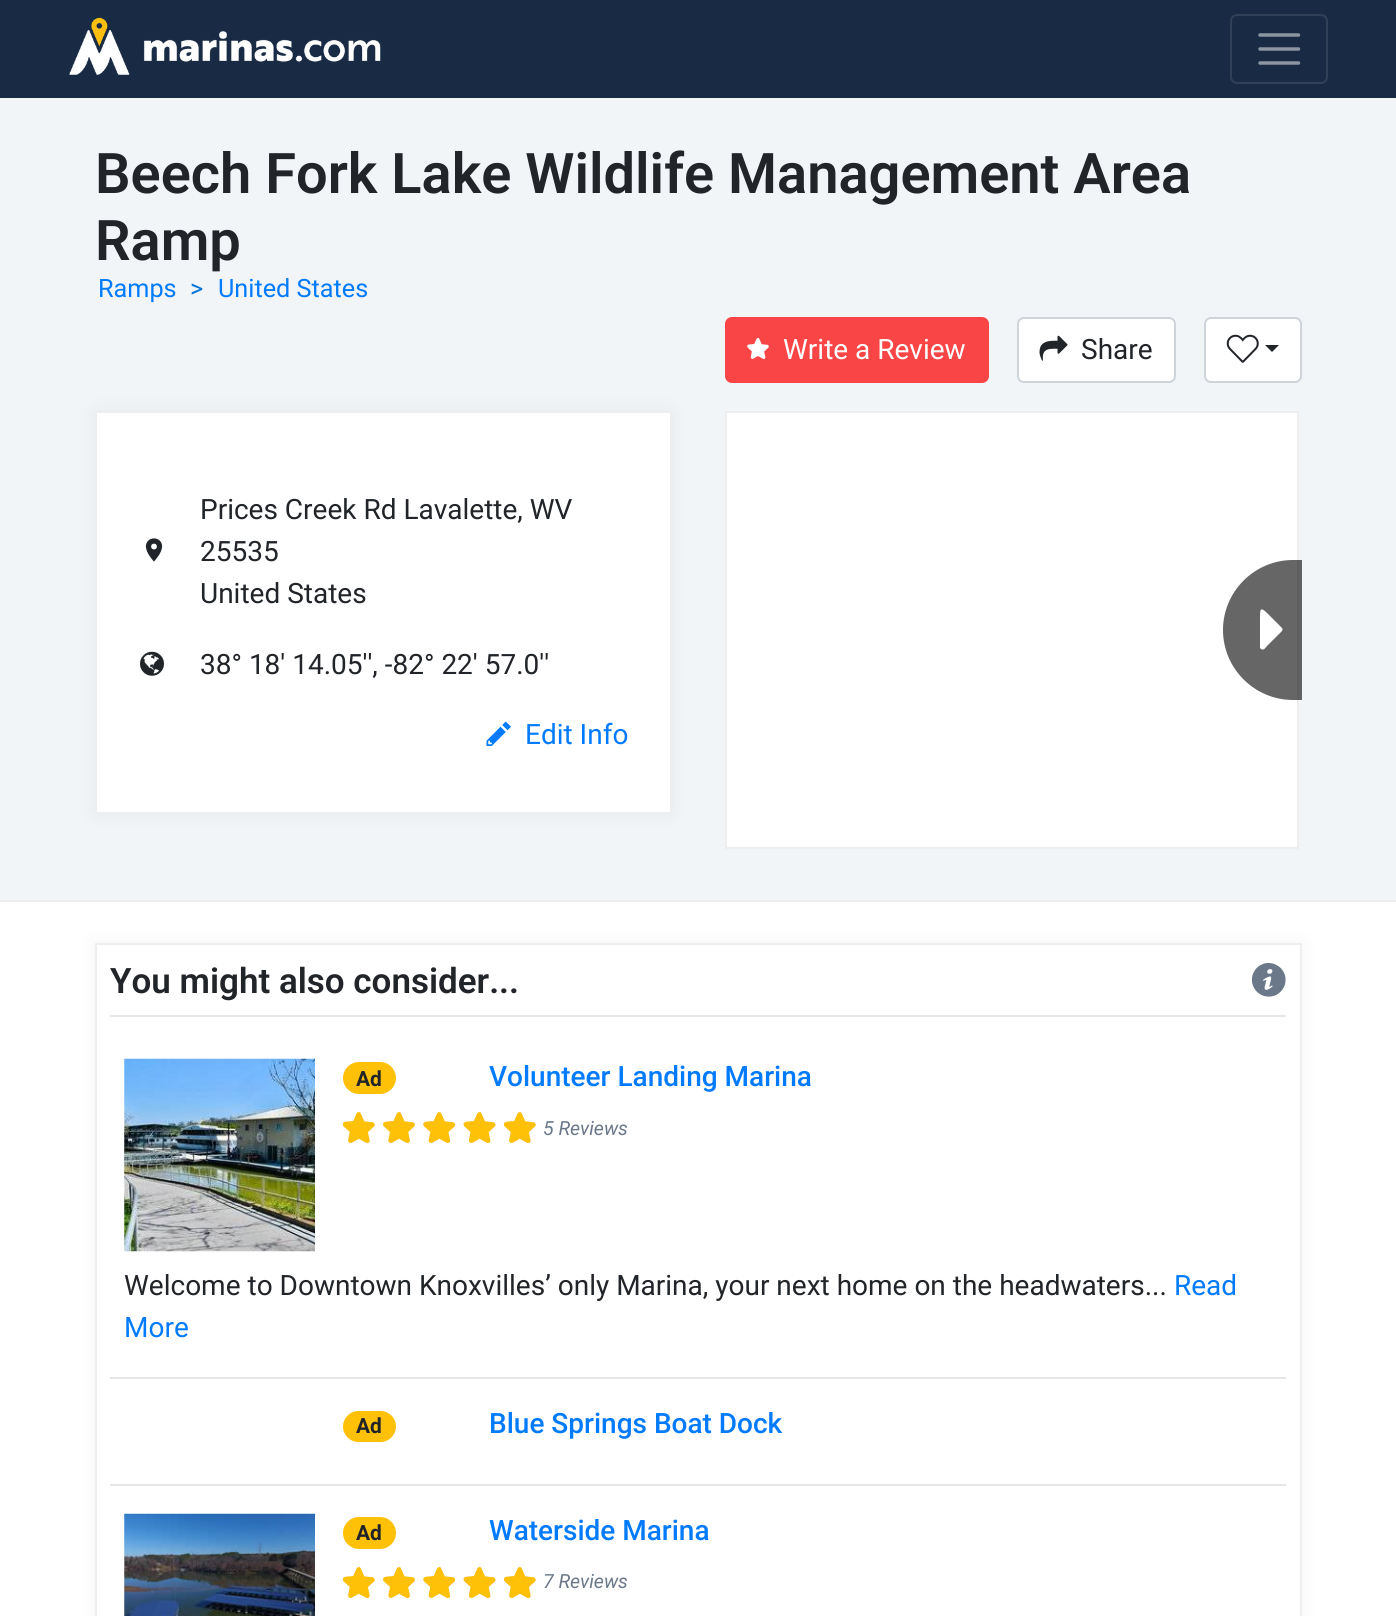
#include <cairo/cairo.h>
#include <math.h>
#include <stddef.h>

typedef struct { double x, y; const char *s; } line_t;
static cairo_t *cr;

static void rgb(unsigned color)
{
	cairo_set_source_rgb(cr, (color >> 16) / 255.0, (color >> 8 & 255) / 255.0, (color & 255) / 255.0);
}

static void rrect(double x, double y, double w, double h, double r)
{
	cairo_new_sub_path(cr);
	cairo_arc(cr, x + w - r, y + h - r, r, 0, M_PI / 2);
	cairo_arc(cr, x + r, y + h - r, r, M_PI / 2, M_PI);
	cairo_arc(cr, x + r, y + r, r, M_PI, 1.5 * M_PI);
	cairo_arc(cr, x + w - r, y + r, r, 1.5 * M_PI, 2 * M_PI);
	cairo_close_path(cr);
}

static void soft_shadow(double x, double y, double w, double h, double r, double blur, double alpha)
{
	cairo_push_group_with_content(cr, CAIRO_CONTENT_ALPHA);
	cairo_set_operator(cr, CAIRO_OPERATOR_SOURCE);
	for (int i = 15; i >= -15 && fmin(w, h) + blur * i / 3 > 0; i -= 2) {
		double e = blur * i / 6;
		cairo_set_source_rgba(cr, 0, 0, 0, alpha * erfc((i - 1) / 8.5) / 2);
		rrect(x - e, y - e, w + 2 * e, h + 2 * e, fmax(0, fmin(r + e + blur * .6, fmin(w, h) / 2 + e)));
		cairo_fill(cr);
	}
	cairo_pattern_t *soft = cairo_pop_group(cr);
	cairo_mask(cr, soft);
	cairo_pattern_destroy(soft);
}

static void image(const char *path, double x, double y, double w, double h)
{
	cairo_surface_t *image = cairo_image_surface_create_from_png(path);
	cairo_save(cr);
	cairo_set_source_surface(cr, image, x, y);
	cairo_rectangle(cr, x, y, w, h);
	cairo_fill(cr);
	cairo_restore(cr);
	cairo_surface_destroy(image);
}

int main(void) {
	cairo_surface_t *surface = cairo_image_surface_create(CAIRO_FORMAT_RGB24, 1396, 1616);
	cr = cairo_create(surface);
	cairo_font_options_t *options = cairo_font_options_create();
	cairo_font_options_set_hint_metrics(options, CAIRO_HINT_METRICS_OFF);
	cairo_font_options_set_hint_style(options, CAIRO_HINT_STYLE_NONE);
	cairo_set_font_options(cr, options);
	cairo_set_miter_limit(cr, 4);
	rgb(0xffffff);
	cairo_paint(cr);
	rgb(0x192b44);
	cairo_rectangle(cr, 0, 0, 1396, 98);
	cairo_fill(cr);
	image("img/1.png", 69, 17, 312, 58);
	rrect(1231, 15, 96, 68, 6);
	rgb(0x304057);
	cairo_stroke(cr);
	cairo_new_path(cr);
	cairo_move_to(cr, 1260, 35);
	cairo_line_to(cr, 1298.5, 35);
	cairo_move_to(cr, 1260, 49);
	cairo_line_to(cr, 1298.5, 49);
	cairo_move_to(cr, 1260, 63);
	cairo_line_to(cr, 1298.5, 63);
	rgb(0x8c95a2);
	cairo_set_line_width(cr, 3.5);
	cairo_set_line_cap(cr, CAIRO_LINE_CAP_ROUND);
	cairo_stroke(cr);
	rgb(0xf1f5f8);
	cairo_rectangle(cr, 0, 98, 1396, 802);
	cairo_fill(cr);
	rgb(0xeeeeee);
	cairo_rectangle(cr, 0, 900, 1396, 2);
	cairo_fill(cr);
	rgb(0xf94545);
	rrect(726, 318, 262, 64, 6);
	cairo_fill_preserve(cr);
	cairo_set_line_width(cr, 2);
	cairo_set_line_cap(cr, CAIRO_LINE_CAP_BUTT);
	cairo_stroke(cr);
	image("img/2.png", 747, 337, 22, 22);
	rgb(0xffffff);
	rrect(1018, 318, 157, 64, 6);
	cairo_fill_preserve(cr);
	rgb(0xced4da);
	cairo_stroke(cr);
	image("img/3.png", 1039, 335, 29, 26);
	rgb(0xffffff);
	rrect(1205, 318, 96, 64, 6);
	cairo_fill_preserve(cr);
	rgb(0xced4da);
	cairo_stroke(cr);
	image("img/4.png", 1226, 334, 33, 29);
	rgb(0x212529);
	cairo_new_path(cr);
	cairo_move_to(cr, 1265, 345);
	cairo_line_to(cr, 1279, 345);
	cairo_line_to(cr, 1272, 352);
	cairo_close_path(cr);
	cairo_fill(cr);
	rgb(0x000000);
	soft_shadow(95, 411, 577, 403, 0, 9, 0.05);
	rgb(0xffffff);
	cairo_rectangle(cr, 96, 412, 575, 401);
	cairo_fill_preserve(cr);
	rgb(0xeeeeee);
	cairo_stroke(cr);
	image("img/5.png", 145, 538, 18, 24);
	image("img/6.png", 140, 651, 24, 25);
	image("img/7.png", 486, 721, 25, 25);
	rgb(0xffffff);
	cairo_rectangle(cr, 726, 412, 572, 436);
	cairo_fill_preserve(cr);
	rgb(0xeeeeee);
	cairo_stroke(cr);
	cairo_set_source_rgba(cr, 0, 0, 0, 0.6);
	cairo_new_path(cr);
	cairo_move_to(cr, 1293, 560);
	cairo_line_to(cr, 1302, 560);
	cairo_line_to(cr, 1302, 700);
	cairo_line_to(cr, 1293, 700);
	cairo_curve_to(cr, 1254.5, 700, 1223, 668.5, 1223, 630);
	cairo_curve_to(cr, 1223, 591.5, 1254.5, 560, 1293, 560);
	cairo_close_path(cr);
	cairo_fill(cr);
	rgb(0xffffff);
	cairo_new_path(cr);
	cairo_move_to(cr, 1282, 628);
	cairo_curve_to(cr, 1284, 630, 1280, 633, 1279, 634);
	cairo_line_to(cr, 1267, 646);
	cairo_curve_to(cr, 1266, 647, 1264, 651, 1261, 649);
	cairo_line_to(cr, 1260, 648);
	cairo_line_to(cr, 1260, 618);
	cairo_curve_to(cr, 1260, 610, 1260, 606, 1267, 613);
	cairo_close_path(cr);
	cairo_fill(cr);
	rgb(0x000000);
	soft_shadow(95, 943, 1207, 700, 0, 9, 0.05);
	rgb(0xffffff);
	cairo_rectangle(cr, 96, 944, 1205, 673);
	cairo_fill_preserve(cr);
	rgb(0xeeeeee);
	cairo_stroke(cr);
	image("img/8.png", 1251, 962, 35, 35);
	rgb(0xe6e6e6);
	cairo_rectangle(cr, 110, 1015, 1176, 2);
	cairo_fill(cr);
	image("img/9.png", 124, 1058, 191, 194);
	rgb(0xffc107);
	rrect(343, 1062, 53, 32, 16);
	cairo_fill(cr);
	image("img/10.png", 343, 1112, 32, 31);
	image("img/11.png", 383, 1112, 32, 31);
	image("img/12.png", 423, 1112, 32, 31);
	image("img/13.png", 463, 1112, 33, 31);
	image("img/10.png", 504, 1112, 32, 31);
	image("img/14.png", 343, 1112, 32, 32);
	image("img/15.png", 383, 1112, 32, 32);
	image("img/16.png", 423, 1112, 33, 31);
	image("img/17.png", 463, 1112, 33, 32);
	image("img/18.png", 503, 1112, 33, 32);
	rgb(0xe6e6e6);
	cairo_rectangle(cr, 110, 1377, 1176, 2);
	cairo_fill(cr);
	rgb(0xffc107);
	rrect(343, 1411, 53, 31, 15.5);
	cairo_fill(cr);
	rgb(0xe6e6e6);
	cairo_rectangle(cr, 110, 1484, 1176, 2);
	cairo_fill(cr);
	image("img/19.png", 124, 1513, 191, 103);
	rgb(0xffc107);
	rrect(343, 1517, 53, 32, 16);
	cairo_fill(cr);
	image("img/10.png", 343, 1567, 32, 31);
	image("img/11.png", 383, 1567, 32, 31);
	image("img/12.png", 423, 1567, 32, 31);
	image("img/13.png", 463, 1567, 33, 31);
	image("img/10.png", 504, 1567, 32, 31);
	image("img/14.png", 343, 1567, 32, 32);
	image("img/15.png", 383, 1567, 32, 32);
	image("img/16.png", 423, 1567, 33, 31);
	image("img/17.png", 463, 1567, 33, 32);
	image("img/18.png", 503, 1567, 33, 32);
	cairo_select_font_face(cr, "Roboto SemiBold", CAIRO_FONT_SLANT_NORMAL, CAIRO_FONT_WEIGHT_NORMAL);
	cairo_set_font_size(cr, 56);
	rgb(0x212529);
	cairo_move_to(cr, 95, 193);
	cairo_show_text(cr, "Beech Fork Lake Wildlife Management Area");
	cairo_move_to(cr, 95, 260);
	cairo_show_text(cr, "Ramp");
	cairo_select_font_face(cr, "Roboto", CAIRO_FONT_SLANT_NORMAL, CAIRO_FONT_WEIGHT_NORMAL);
	cairo_set_font_size(cr, 25.25);
	rgb(0x007bff);
	cairo_move_to(cr, 98, 297);
	cairo_show_text(cr, "Ramps");
	rgb(0x0275d8);
	cairo_move_to(cr, 190, 297);
	cairo_show_text(cr, ">");
	rgb(0x007bff);
	cairo_move_to(cr, 218, 297);
	cairo_show_text(cr, "United States");
	cairo_set_font_size(cr, 28);
	rgb(0xffffff);
	cairo_move_to(cr, 783, 359);
	cairo_show_text(cr, "Write a Review");
	rgb(0x212529);
	{
		static const line_t items[] = {
			{1081, 359, "Share"},
			{200, 519, "Prices Creek Rd Lavalette, WV"},
			{200, 561, "25535"},
			{200, 603, "United States"},
			{200, 674, "38° 18' 14.05'', -82° 22' 57.0''"},
		};
		for (size_t i = 0; i < sizeof items / sizeof *items; i++) {
			cairo_move_to(cr, items[i].x, items[i].y);
			cairo_show_text(cr, items[i].s);
		}
	}
	rgb(0x007bff);
	cairo_move_to(cr, 525, 744);
	cairo_show_text(cr, "Edit Info");
	cairo_select_font_face(cr, "Roboto SemiBold", CAIRO_FONT_SLANT_NORMAL, CAIRO_FONT_WEIGHT_NORMAL);
	cairo_set_font_size(cr, 35);
	rgb(0x212529);
	cairo_move_to(cr, 110, 993);
	cairo_show_text(cr, "You might also consider...");
	cairo_select_font_face(cr, "Roboto", CAIRO_FONT_SLANT_NORMAL, CAIRO_FONT_WEIGHT_BOLD);
	cairo_set_font_size(cr, 21);
	cairo_move_to(cr, 356, 1086);
	cairo_show_text(cr, "Ad");
	cairo_select_font_face(cr, "Roboto Medium", CAIRO_FONT_SLANT_NORMAL, CAIRO_FONT_WEIGHT_NORMAL);
	cairo_set_font_size(cr, 28);
	rgb(0x007bff);
	cairo_move_to(cr, 489, 1086);
	cairo_show_text(cr, "Volunteer Landing Marina");
	cairo_select_font_face(cr, "Roboto", CAIRO_FONT_SLANT_ITALIC, CAIRO_FONT_WEIGHT_NORMAL);
	cairo_set_font_size(cr, 19.5);
	rgb(0x6a788a);
	cairo_move_to(cr, 543, 1135);
	cairo_show_text(cr, "5 Reviews");
	cairo_select_font_face(cr, "Roboto", CAIRO_FONT_SLANT_NORMAL, CAIRO_FONT_WEIGHT_NORMAL);
	cairo_set_font_size(cr, 28);
	rgb(0x212529);
	cairo_move_to(cr, 124, 1295);
	cairo_show_text(cr, "Welcome to Downtown Knoxvilles’ only Marina, your next home on the headwaters...");
	rgb(0x007bff);
	cairo_move_to(cr, 1174, 1295);
	cairo_show_text(cr, "Read");
	cairo_move_to(cr, 124, 1337);
	cairo_show_text(cr, "More");
	cairo_select_font_face(cr, "Roboto", CAIRO_FONT_SLANT_NORMAL, CAIRO_FONT_WEIGHT_BOLD);
	cairo_set_font_size(cr, 21);
	rgb(0x212529);
	cairo_move_to(cr, 356, 1433);
	cairo_show_text(cr, "Ad");
	cairo_select_font_face(cr, "Roboto Medium", CAIRO_FONT_SLANT_NORMAL, CAIRO_FONT_WEIGHT_NORMAL);
	cairo_set_font_size(cr, 28);
	rgb(0x007bff);
	cairo_move_to(cr, 489, 1433);
	cairo_show_text(cr, "Blue Springs Boat Dock");
	cairo_select_font_face(cr, "Roboto", CAIRO_FONT_SLANT_NORMAL, CAIRO_FONT_WEIGHT_BOLD);
	cairo_set_font_size(cr, 21);
	rgb(0x212529);
	cairo_move_to(cr, 356, 1540);
	cairo_show_text(cr, "Ad");
	cairo_select_font_face(cr, "Roboto Medium", CAIRO_FONT_SLANT_NORMAL, CAIRO_FONT_WEIGHT_NORMAL);
	cairo_set_font_size(cr, 28);
	rgb(0x007bff);
	cairo_move_to(cr, 489, 1540);
	cairo_show_text(cr, "Waterside Marina");
	cairo_select_font_face(cr, "Roboto", CAIRO_FONT_SLANT_ITALIC, CAIRO_FONT_WEIGHT_NORMAL);
	cairo_set_font_size(cr, 19.5);
	rgb(0x6a788a);
	cairo_move_to(cr, 543, 1588);
	cairo_show_text(cr, "7 Reviews");
	cairo_surface_write_to_png(surface, "page.png");
	cairo_font_options_destroy(options);
	cairo_destroy(cr);
	cairo_surface_destroy(surface);
	return 0;
}
